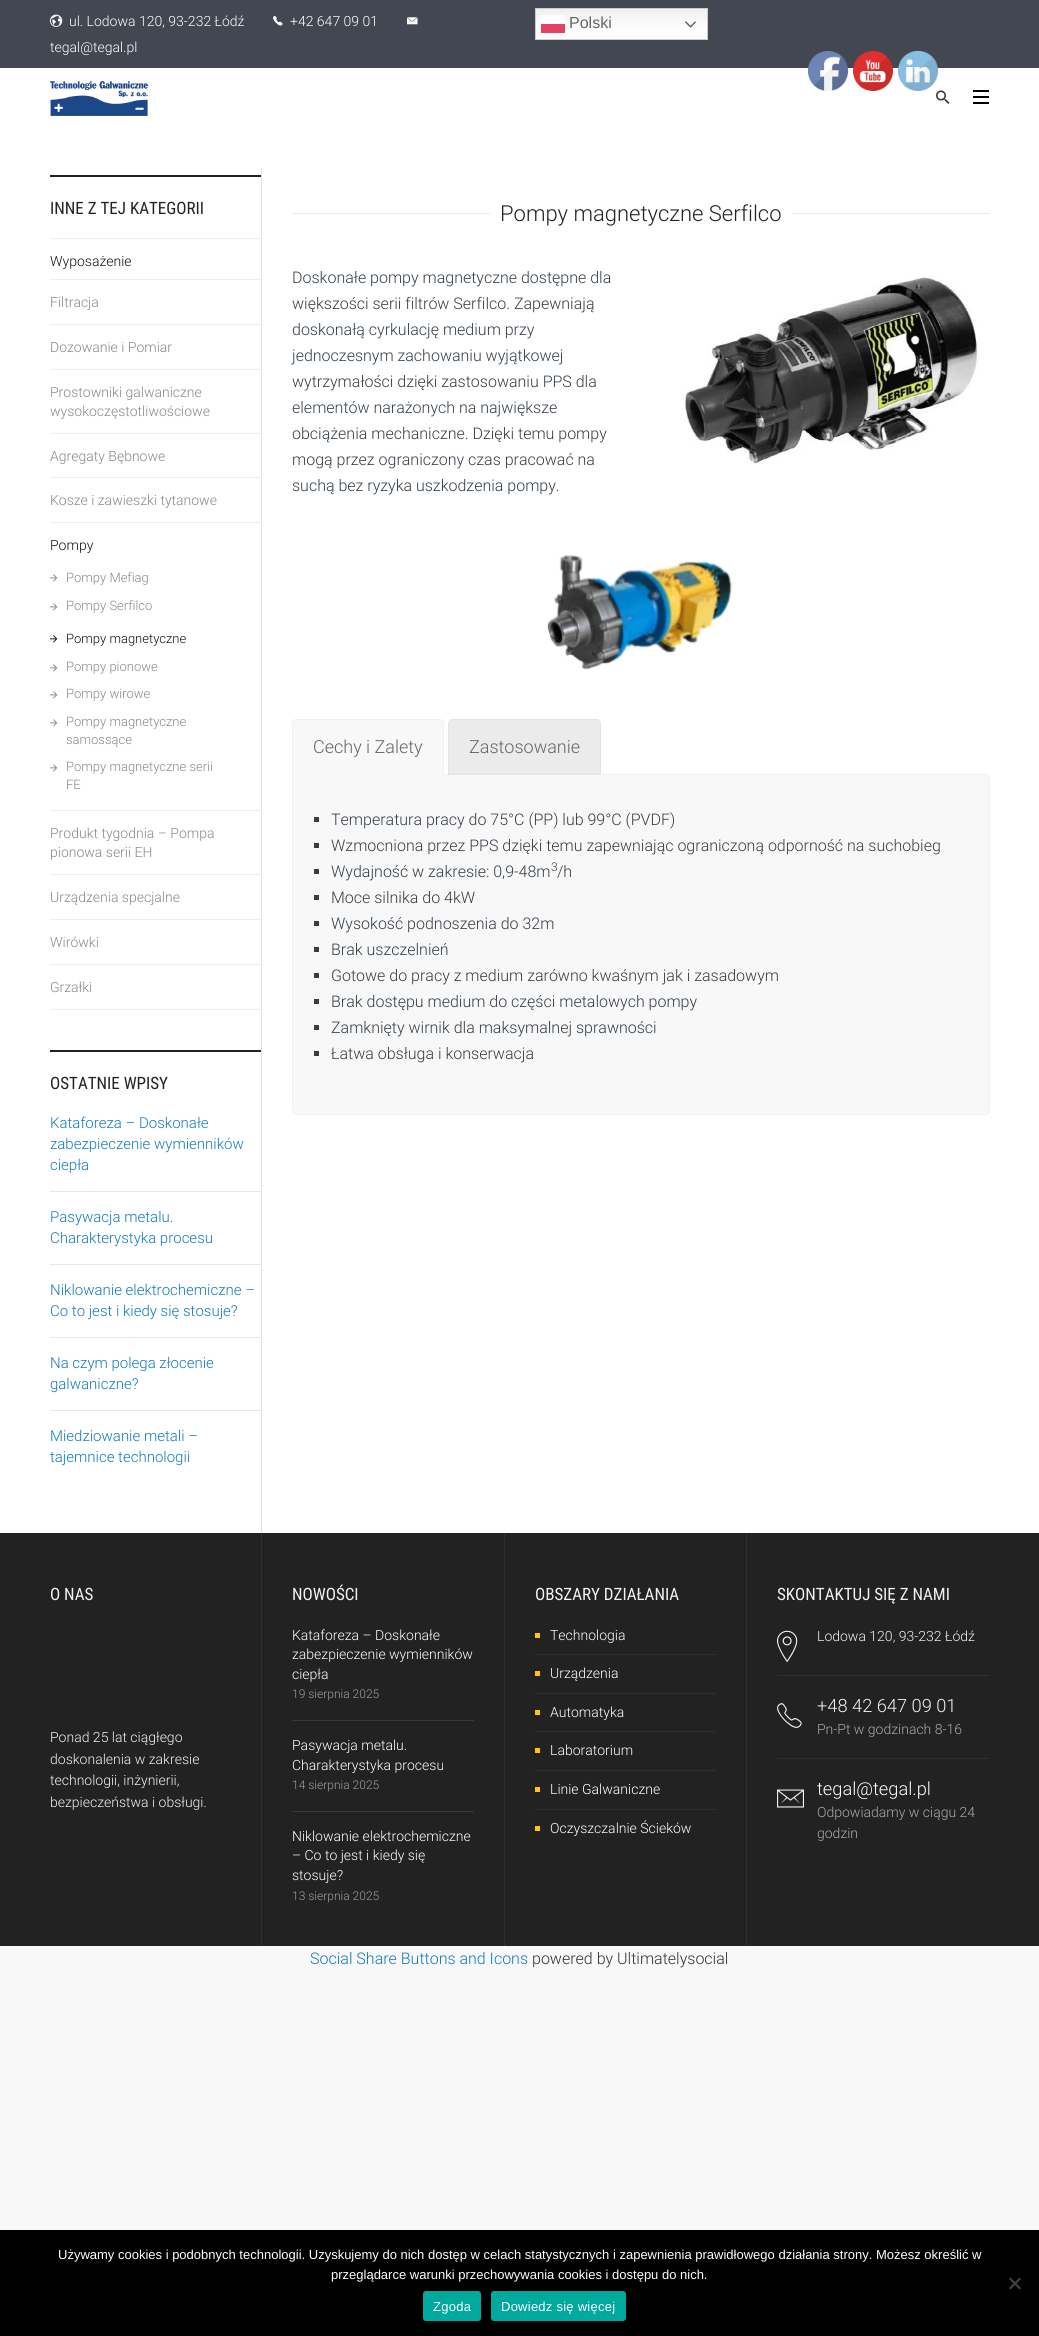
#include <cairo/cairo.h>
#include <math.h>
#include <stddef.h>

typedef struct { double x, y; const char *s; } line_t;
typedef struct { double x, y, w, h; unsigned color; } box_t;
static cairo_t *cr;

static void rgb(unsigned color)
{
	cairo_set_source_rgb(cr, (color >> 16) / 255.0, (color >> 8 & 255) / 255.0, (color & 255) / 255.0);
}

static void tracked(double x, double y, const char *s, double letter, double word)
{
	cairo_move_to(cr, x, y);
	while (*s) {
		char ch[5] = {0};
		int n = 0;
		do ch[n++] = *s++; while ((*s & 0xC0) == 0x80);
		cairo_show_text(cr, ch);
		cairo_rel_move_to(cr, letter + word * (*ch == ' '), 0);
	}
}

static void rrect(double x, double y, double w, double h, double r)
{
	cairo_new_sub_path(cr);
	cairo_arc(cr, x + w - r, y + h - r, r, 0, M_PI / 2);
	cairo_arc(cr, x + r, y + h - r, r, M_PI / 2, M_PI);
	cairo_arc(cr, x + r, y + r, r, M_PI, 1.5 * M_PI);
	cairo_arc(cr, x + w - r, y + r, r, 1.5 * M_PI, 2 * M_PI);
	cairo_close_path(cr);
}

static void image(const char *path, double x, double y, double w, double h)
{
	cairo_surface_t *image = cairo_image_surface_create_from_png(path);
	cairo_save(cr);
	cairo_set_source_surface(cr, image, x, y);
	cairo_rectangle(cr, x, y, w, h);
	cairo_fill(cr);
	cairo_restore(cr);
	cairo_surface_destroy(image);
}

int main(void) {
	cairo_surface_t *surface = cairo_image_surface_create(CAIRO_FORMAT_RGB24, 1039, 2336);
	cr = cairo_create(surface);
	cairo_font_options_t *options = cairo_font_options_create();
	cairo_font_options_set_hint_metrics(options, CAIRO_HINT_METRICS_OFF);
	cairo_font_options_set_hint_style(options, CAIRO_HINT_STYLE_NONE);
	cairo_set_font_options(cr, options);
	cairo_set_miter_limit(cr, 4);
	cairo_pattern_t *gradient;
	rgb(0xf8f8f8);
	cairo_paint(cr);
	rgb(0xffffff);
	cairo_rectangle(cr, 0, 68, 1039, 1465);
	cairo_fill(cr);
	rgb(0x434752);
	cairo_rectangle(cr, 0, 0, 1039, 68);
	cairo_fill(cr);
	image("img/1.png", 50, 14, 13, 13);
	image("img/2.png", 273, 16, 10, 10);
	image("img/3.png", 407, 17, 11, 8);
	gradient = cairo_pattern_create_linear(622, 8, 622, 40);
	cairo_pattern_add_color_stop_rgba(gradient, 0, 0.937, 0.937, 0.937, 1);
	cairo_pattern_add_color_stop_rgba(gradient, 0.7, 1, 1, 1, 1);
	cairo_set_source(cr, gradient);
	cairo_pattern_destroy(gradient);
	cairo_rectangle(cr, 536, 9, 171, 30);
	cairo_fill(cr);
	gradient = cairo_pattern_create_linear(622, 8, 622, 40);
	cairo_pattern_add_color_stop_rgba(gradient, 0, 0.988, 0.988, 0.988, 1);
	cairo_pattern_add_color_stop_rgba(gradient, 0.7, 1, 1, 1, 1);
	cairo_set_source(cr, gradient);
	cairo_pattern_destroy(gradient);
	cairo_rectangle(cr, 541, 15, 24, 9);
	cairo_fill(cr);
	cairo_rectangle(cr, 535.5, 8.5, 172, 31);
	rgb(0xcccccc);
	cairo_set_line_width(cr, 1);
	cairo_stroke(cr);
	rgb(0xe34363);
	cairo_rectangle(cr, 541, 24, 24, 9);
	cairo_fill(cr);
	image("img/4.png", 685, 21, 11, 7);
	image("img/5.png", 50, 81, 98, 35);
	image("img/6.png", 936, 90, 14, 14);
	{
		static const box_t items[] = {
			{973, 90, 16, 2, 0x000000},
			{973, 96, 16, 2, 0x000000},
			{973, 102, 16, 2, 0x000000},
			{261, 168, 1, 1365, 0xe2e2e2},
			{50, 1009, 211, 1, 0xeeeeee},
			{50, 175, 211, 2, 0x222222},
			{50, 238, 211, 1, 0xeeeeee},
			{50, 279, 211, 1, 0xeeeeee},
			{50, 324, 211, 1, 0xeeeeee},
			{50, 369, 211, 1, 0xeeeeee},
			{50, 433, 211, 1, 0xeeeeee},
			{50, 477, 211, 1, 0xeeeeee},
			{50, 522, 211, 1, 0xeeeeee},
		};
		for (size_t i = 0; i < sizeof items / sizeof *items; i++) {
			rgb(items[i].color);
			cairo_rectangle(cr, items[i].x, items[i].y, items[i].w, items[i].h);
			cairo_fill(cr);
		}
	}
	image("img/7.png", 50, 574, 8, 8);
	image("img/7.png", 50, 603, 8, 8);
	image("img/8.png", 50, 635, 8, 8);
	image("img/7.png", 50, 664, 8, 8);
	image("img/7.png", 50, 691, 8, 8);
	image("img/7.png", 50, 719, 8, 8);
	image("img/7.png", 50, 764, 8, 8);
	{
		static const box_t items[] = {
			{50, 810, 211, 1, 0xeeeeee},
			{50, 874, 211, 1, 0xeeeeee},
			{50, 919, 211, 1, 0xeeeeee},
			{50, 964, 211, 1, 0xeeeeee},
			{50, 1050, 211, 2, 0x222222},
			{50, 1191, 211, 1, 0xe6e6e6},
			{50, 1264, 211, 1, 0xe6e6e6},
			{50, 1337, 211, 1, 0xe6e6e6},
			{50, 1410, 211, 1, 0xe6e6e6},
			{292, 213, 698, 1, 0xe8e8e8},
			{490, 213, 302, 1, 0xffffff},
		};
		for (size_t i = 0; i < sizeof items / sizeof *items; i++) {
			rgb(items[i].color);
			cairo_rectangle(cr, items[i].x, items[i].y, items[i].w, items[i].h);
			cairo_fill(cr);
		}
	}
	image("img/9.png", 684, 276, 295, 188);
	image("img/10.png", 547, 554, 185, 116);
	rgb(0xf8f8f8);
	cairo_new_path(cr);
	cairo_move_to(cr, 292.5, 774.5);
	cairo_line_to(cr, 985, 774.5);
	cairo_curve_to(cr, 987.5, 774.5, 989.5, 776.5, 989.5, 779);
	cairo_line_to(cr, 989.5, 1110);
	cairo_curve_to(cr, 989.5, 1112.5, 987.5, 1114.5, 985, 1114.5);
	cairo_line_to(cr, 297, 1114.5);
	cairo_curve_to(cr, 294.5, 1114.5, 292.5, 1112.5, 292.5, 1110);
	cairo_close_path(cr);
	cairo_fill_preserve(cr);
	rgb(0xf0f0f0);
	cairo_stroke(cr);
	rgb(0xf8f8f8);
	cairo_new_path(cr);
	cairo_move_to(cr, 297, 719);
	cairo_line_to(cr, 439, 719);
	cairo_curve_to(cr, 442, 719, 444, 721, 444, 724);
	cairo_line_to(cr, 444, 775);
	cairo_line_to(cr, 292, 775);
	cairo_line_to(cr, 292, 724);
	cairo_curve_to(cr, 292, 721, 294, 719, 297, 719);
	cairo_close_path(cr);
	cairo_fill(cr);
	rgb(0xf0f0f0);
	cairo_new_path(cr);
	cairo_move_to(cr, 297, 719);
	cairo_curve_to(cr, 296, 719, 294, 720, 293, 720);
	cairo_line_to(cr, 294, 721);
	cairo_curve_to(cr, 295, 720, 296, 720, 297, 720);
	cairo_line_to(cr, 439, 720);
	cairo_curve_to(cr, 440, 720, 441, 720, 442, 721);
	cairo_line_to(cr, 443, 720);
	cairo_curve_to(cr, 442, 720, 440, 719, 439, 719);
	cairo_close_path(cr);
	cairo_fill(cr);
	cairo_new_path(cr);
	cairo_move_to(cr, 444, 775);
	cairo_line_to(cr, 444, 724);
	cairo_curve_to(cr, 444, 722, 444, 721, 443, 720);
	cairo_line_to(cr, 442, 721);
	cairo_line_to(cr, 443, 724);
	cairo_line_to(cr, 443, 774);
	cairo_close_path(cr);
	cairo_fill(cr);
	cairo_new_path(cr);
	cairo_move_to(cr, 292, 775);
	cairo_line_to(cr, 293, 774);
	cairo_line_to(cr, 293, 724);
	cairo_line_to(cr, 294, 721);
	cairo_line_to(cr, 293, 720);
	cairo_curve_to(cr, 292, 721, 292, 722, 292, 724);
	cairo_close_path(cr);
	cairo_fill(cr);
	cairo_rectangle(cr, 292, 774, 1, 1);
	cairo_fill(cr);
	cairo_rectangle(cr, 443, 774, 1, 1);
	cairo_fill(cr);
	rgb(0xebebeb);
	cairo_new_path(cr);
	cairo_move_to(cr, 453, 719.5);
	cairo_line_to(cr, 596, 719.5);
	cairo_curve_to(cr, 598.5, 719.5, 600.5, 721.5, 600.5, 724);
	cairo_line_to(cr, 600.5, 774.5);
	cairo_line_to(cr, 448.5, 774.5);
	cairo_line_to(cr, 448.5, 724);
	cairo_curve_to(cr, 448.5, 721.5, 450.5, 719.5, 453, 719.5);
	cairo_close_path(cr);
	cairo_fill_preserve(cr);
	rgb(0xe3e3e3);
	cairo_stroke(cr);
	{
		static const box_t items[] = {
			{314, 817, 5, 5, 0x343e47},
			{314, 843, 5, 5, 0x343e47},
			{314, 869, 5, 5, 0x343e47},
			{314, 895, 5, 5, 0x343e47},
			{314, 921, 5, 5, 0x343e47},
			{314, 947, 5, 5, 0x343e47},
			{314, 973, 5, 5, 0x343e47},
			{314, 999, 5, 5, 0x343e47},
			{314, 1025, 5, 5, 0x343e47},
			{314, 1051, 5, 5, 0x343e47},
		};
		for (size_t i = 0; i < sizeof items / sizeof *items; i++) {
			rgb(items[i].color);
			cairo_rectangle(cr, items[i].x, items[i].y, items[i].w, items[i].h);
			cairo_fill(cr);
		}
	}
	image("img/11.png", 808, 51, 40, 40);
	image("img/12.png", 853, 51, 40, 40);
	image("img/13.png", 898, 51, 40, 40);
	{
		static const box_t items[] = {
			{0, 1533, 1039, 413, 0x222222},
			{261, 1533, 1, 413, 0x2f2f2f},
			{504, 1533, 1, 413, 0x2f2f2f},
			{292, 1720, 182, 1, 0x383838},
			{292, 1811, 182, 1, 0x383838},
			{746, 1533, 1, 413, 0x2f2f2f},
			{535, 1654, 181, 1, 0x2f2f2f},
			{535, 1633, 5, 5, 0xfdc900},
			{535, 1693, 181, 1, 0x2f2f2f},
			{535, 1671, 5, 5, 0xfdc900},
			{535, 1731, 181, 1, 0x2f2f2f},
			{535, 1710, 5, 5, 0xfdc900},
			{535, 1770, 181, 1, 0x2f2f2f},
			{535, 1748, 5, 5, 0xfdc900},
			{535, 1809, 181, 1, 0x2f2f2f},
			{535, 1787, 5, 5, 0xfdc900},
			{535, 1826, 5, 5, 0xfdc900},
		};
		for (size_t i = 0; i < sizeof items / sizeof *items; i++) {
			rgb(items[i].color);
			cairo_rectangle(cr, items[i].x, items[i].y, items[i].w, items[i].h);
			cairo_fill(cr);
		}
	}
	image("img/14.png", 777, 1630, 21, 33);
	rgb(0x2f2f2f);
	cairo_rectangle(cr, 777, 1675, 213, 1);
	cairo_fill(cr);
	image("img/15.png", 777, 1703, 25, 25);
	cairo_rectangle(cr, 777, 1758, 213, 1);
	cairo_fill(cr);
	image("img/16.png", 777, 1789, 27, 19);
	rgb(0x000000);
	cairo_rectangle(cr, 0, 2230, 1039, 106);
	cairo_fill(cr);
	rgb(0x404040);
	cairo_new_path(cr);
	cairo_move_to(cr, 1019.5, 2277.5);
	cairo_line_to(cr, 1021, 2279);
	cairo_line_to(cr, 1010.5, 2289.5);
	cairo_line_to(cr, 1009, 2288);
	cairo_close_path(cr);
	cairo_fill(cr);
	cairo_new_path(cr);
	cairo_move_to(cr, 1009, 2279);
	cairo_line_to(cr, 1010.5, 2277.5);
	cairo_line_to(cr, 1021, 2288);
	cairo_line_to(cr, 1019.5, 2289.5);
	cairo_close_path(cr);
	cairo_fill(cr);
	rgb(0x00a99d);
	rrect(423, 2291, 58, 30, 3);
	cairo_fill(cr);
	rrect(491, 2291, 135, 30, 3);
	cairo_fill(cr);
	cairo_select_font_face(cr, "Roboto Light", CAIRO_FONT_SLANT_NORMAL, CAIRO_FONT_WEIGHT_NORMAL);
	cairo_set_font_size(cr, 14);
	rgb(0xffffff);
	{
		static const line_t items[] = {
			{69, 26, "ul. Lodowa 120, 93-232 Łódź"},
			{290, 26, "+42 647 09 01"},
			{50, 52, "tegal@tegal.pl"},
		};
		for (size_t i = 0; i < sizeof items / sizeof *items; i++) {
			cairo_move_to(cr, items[i].x, items[i].y);
			cairo_show_text(cr, items[i].s);
		}
	}
	cairo_select_font_face(cr, "Liberation Sans", CAIRO_FONT_SLANT_NORMAL, CAIRO_FONT_WEIGHT_NORMAL);
	cairo_set_font_size(cr, 16);
	rgb(0x666666);
	cairo_move_to(cr, 569, 28);
	cairo_show_text(cr, "Polski");
	cairo_select_font_face(cr, "Roboto Condensed", CAIRO_FONT_SLANT_NORMAL, CAIRO_FONT_WEIGHT_NORMAL);
	cairo_set_font_size(cr, 17);
	rgb(0x222222);
	cairo_move_to(cr, 50, 214);
	cairo_show_text(cr, "INNE Z TEJ KATEGORII");
	cairo_select_font_face(cr, "Roboto Light", CAIRO_FONT_SLANT_NORMAL, CAIRO_FONT_WEIGHT_NORMAL);
	cairo_set_font_size(cr, 14);
	rgb(0x111111);
	cairo_move_to(cr, 50, 266);
	cairo_show_text(cr, "Wyposażenie");
	rgb(0x888888);
	{
		static const line_t items[] = {
			{50, 307, "Filtracja"},
			{50, 352, "Dozowanie i Pomiar"},
			{50, 397, "Prostowniki galwaniczne"},
			{50, 416, "wysokoczęstotliwościowe"},
			{50, 461, "Agregaty Bębnowe"},
			{50, 505, "Kosze i zawieszki tytanowe"},
		};
		for (size_t i = 0; i < sizeof items / sizeof *items; i++) {
			cairo_move_to(cr, items[i].x, items[i].y);
			cairo_show_text(cr, items[i].s);
		}
	}
	rgb(0x111111);
	cairo_move_to(cr, 50, 550);
	cairo_show_text(cr, "Pompy");
	cairo_set_font_size(cr, 13);
	rgb(0x888888);
	cairo_move_to(cr, 66, 582);
	cairo_show_text(cr, "Pompy Mefiag");
	cairo_move_to(cr, 66, 610);
	cairo_show_text(cr, "Pompy Serfilco");
	rgb(0x111111);
	cairo_move_to(cr, 66, 643);
	cairo_show_text(cr, "Pompy magnetyczne");
	rgb(0x888888);
	{
		static const line_t items[] = {
			{66, 671, "Pompy pionowe"},
			{66, 698, "Pompy wirowe"},
			{66, 726, "Pompy magnetyczne"},
			{66, 744, "samossące"},
			{66, 771, "Pompy magnetyczne serii"},
			{66, 789, "FE"},
		};
		for (size_t i = 0; i < sizeof items / sizeof *items; i++) {
			cairo_move_to(cr, items[i].x, items[i].y);
			cairo_show_text(cr, items[i].s);
		}
	}
	cairo_set_font_size(cr, 14);
	{
		static const line_t items[] = {
			{50, 838, "Produkt tygodnia – Pompa"},
			{50, 857, "pionowa serii EH"},
			{50, 902, "Urządzenia specjalne"},
			{50, 947, "Wirówki"},
			{50, 992, "Grzałki"},
		};
		for (size_t i = 0; i < sizeof items / sizeof *items; i++) {
			cairo_move_to(cr, items[i].x, items[i].y);
			cairo_show_text(cr, items[i].s);
		}
	}
	cairo_select_font_face(cr, "Roboto Condensed", CAIRO_FONT_SLANT_NORMAL, CAIRO_FONT_WEIGHT_NORMAL);
	cairo_set_font_size(cr, 17);
	rgb(0x222222);
	cairo_move_to(cr, 50, 1089);
	cairo_show_text(cr, "OSTATNIE WPISY");
	cairo_select_font_face(cr, "Roboto Light", CAIRO_FONT_SLANT_NORMAL, CAIRO_FONT_WEIGHT_NORMAL);
	cairo_set_font_size(cr, 15);
	rgb(0x117abc);
	{
		static const line_t items[] = {
			{50, 1128, "Kataforeza – Doskonałe"},
			{50, 1149, "zabezpieczenie wymienników"},
			{50, 1170, "ciepła"},
			{50, 1222, "Pasywacja metalu."},
			{50, 1243, "Charakterystyka procesu"},
			{50, 1295, "Niklowanie elektrochemiczne –"},
			{50, 1316, "Co to jest i kiedy się stosuje?"},
			{50, 1368, "Na czym polega złocenie"},
			{50, 1389, "galwaniczne?"},
			{50, 1441, "Miedziowanie metali –"},
			{50, 1462, "tajemnice technologii"},
		};
		for (size_t i = 0; i < sizeof items / sizeof *items; i++) {
			cairo_move_to(cr, items[i].x, items[i].y);
			cairo_show_text(cr, items[i].s);
		}
	}
	cairo_set_font_size(cr, 22);
	rgb(0x222222);
	cairo_move_to(cr, 500, 221);
	cairo_show_text(cr, "Pompy magnetyczne Serfilco");
	cairo_set_font_size(cr, 16);
	rgb(0x343e47);
	{
		static const line_t items[] = {
			{292, 283, "Doskonałe pompy magnetyczne dostępne dla"},
			{292, 309, "większości serii filtrów Serfilco. Zapewniają"},
			{292, 335, "doskonałą cyrkulację medium przy"},
			{292, 361, "jednoczesnym zachowaniu wyjątkowej"},
			{292, 387, "wytrzymałości dzięki zastosowaniu PPS dla"},
			{292, 413, "elementów narażonych na największe"},
			{292, 439, "obciążenia mechaniczne. Dzięki temu pompy"},
			{292, 465, "mogą przez ograniczony czas pracować na"},
			{292, 491, "suchą bez ryzyka uszkodzenia pompy."},
		};
		for (size_t i = 0; i < sizeof items / sizeof *items; i++) {
			cairo_move_to(cr, items[i].x, items[i].y);
			cairo_show_text(cr, items[i].s);
		}
	}
	cairo_set_font_size(cr, 18);
	rgb(0x666666);
	cairo_move_to(cr, 313, 753);
	cairo_show_text(cr, "Cechy i Zalety");
	cairo_move_to(cr, 469, 753);
	cairo_show_text(cr, "Zastosowanie");
	cairo_set_font_size(cr, 16);
	rgb(0x343e47);
	{
		static const line_t items[] = {
			{331, 825, "Temperatura pracy do 75°C (PP) lub 99°C (PVDF)"},
			{331, 851, "Wzmocniona przez PPS dzięki temu zapewniając ograniczoną odporność na suchobieg"},
			{331, 877, "Wydajność w zakresie: 0,9-48m"},
		};
		for (size_t i = 0; i < sizeof items / sizeof *items; i++) {
			cairo_move_to(cr, items[i].x, items[i].y);
			cairo_show_text(cr, items[i].s);
		}
	}
	cairo_set_font_size(cr, 12);
	cairo_move_to(cr, 551, 871);
	cairo_show_text(cr, "3");
	cairo_set_font_size(cr, 16);
	{
		static const line_t items[] = {
			{557, 877, "/h"},
			{331, 903, "Moce silnika do 4kW"},
			{331, 929, "Wysokość podnoszenia do 32m"},
			{331, 955, "Brak uszczelnień"},
			{331, 981, "Gotowe do pracy z medium zarówno kwaśnym jak i zasadowym"},
			{331, 1007, "Brak dostępu medium do części metalowych pompy"},
			{331, 1033, "Zamknięty wirnik dla maksymalnej sprawności"},
			{331, 1059, "Łatwa obsługa i konserwacja"},
		};
		for (size_t i = 0; i < sizeof items / sizeof *items; i++) {
			cairo_move_to(cr, items[i].x, items[i].y);
			cairo_show_text(cr, items[i].s);
		}
	}
	cairo_select_font_face(cr, "Roboto Condensed", CAIRO_FONT_SLANT_NORMAL, CAIRO_FONT_WEIGHT_NORMAL);
	cairo_set_font_size(cr, 17);
	rgb(0xf2f2f2);
	cairo_move_to(cr, 50, 1600);
	cairo_show_text(cr, "O NAS");
	cairo_select_font_face(cr, "Roboto Light", CAIRO_FONT_SLANT_NORMAL, CAIRO_FONT_WEIGHT_NORMAL);
	cairo_set_font_size(cr, 14);
	{
		static const line_t items[] = {
			{50, 1742, "Ponad 25 lat ciągłego"},
			{50, 1764, "doskonalenia w zakresie"},
			{50, 1785, "technologii, inżynierii,"},
			{50, 1807, "bezpieczeństwa i obsługi."},
		};
		for (size_t i = 0; i < sizeof items / sizeof *items; i++) {
			cairo_move_to(cr, items[i].x, items[i].y);
			cairo_show_text(cr, items[i].s);
		}
	}
	cairo_select_font_face(cr, "Roboto Condensed", CAIRO_FONT_SLANT_NORMAL, CAIRO_FONT_WEIGHT_NORMAL);
	cairo_set_font_size(cr, 17);
	cairo_move_to(cr, 292, 1600);
	cairo_show_text(cr, "NOWOŚCI");
	cairo_select_font_face(cr, "Roboto Light", CAIRO_FONT_SLANT_NORMAL, CAIRO_FONT_WEIGHT_NORMAL);
	cairo_set_font_size(cr, 14);
	rgb(0xffffff);
	{
		static const line_t items[] = {
			{292, 1640, "Kataforeza – Doskonałe"},
			{292, 1659, "zabezpieczenie wymienników"},
			{292, 1679, "ciepła"},
		};
		for (size_t i = 0; i < sizeof items / sizeof *items; i++) {
			cairo_move_to(cr, items[i].x, items[i].y);
			cairo_show_text(cr, items[i].s);
		}
	}
	cairo_set_font_size(cr, 12);
	rgb(0x9f9f9f);
	cairo_move_to(cr, 292, 1698);
	cairo_show_text(cr, "19 sierpnia 2025");
	cairo_set_font_size(cr, 14);
	rgb(0xffffff);
	cairo_move_to(cr, 292, 1750);
	cairo_show_text(cr, "Pasywacja metalu.");
	cairo_move_to(cr, 292, 1770);
	cairo_show_text(cr, "Charakterystyka procesu");
	cairo_set_font_size(cr, 12);
	rgb(0x9f9f9f);
	cairo_move_to(cr, 292, 1789);
	cairo_show_text(cr, "14 sierpnia 2025");
	cairo_set_font_size(cr, 14);
	rgb(0xffffff);
	{
		static const line_t items[] = {
			{292, 1841, "Niklowanie elektrochemiczne"},
			{292, 1860, "– Co to jest i kiedy się"},
			{292, 1880, "stosuje?"},
		};
		for (size_t i = 0; i < sizeof items / sizeof *items; i++) {
			cairo_move_to(cr, items[i].x, items[i].y);
			cairo_show_text(cr, items[i].s);
		}
	}
	cairo_set_font_size(cr, 12);
	rgb(0x9f9f9f);
	cairo_move_to(cr, 292, 1900);
	cairo_show_text(cr, "13 sierpnia 2025");
	cairo_select_font_face(cr, "Roboto Condensed", CAIRO_FONT_SLANT_NORMAL, CAIRO_FONT_WEIGHT_NORMAL);
	cairo_set_font_size(cr, 17);
	rgb(0xf2f2f2);
	cairo_move_to(cr, 535, 1600);
	cairo_show_text(cr, "OBSZARY DZIAŁANIA");
	cairo_select_font_face(cr, "Roboto Light", CAIRO_FONT_SLANT_NORMAL, CAIRO_FONT_WEIGHT_NORMAL);
	cairo_set_font_size(cr, 14);
	rgb(0xffffff);
	{
		static const line_t items[] = {
			{550, 1640, "Technologia"},
			{550, 1678, "Urządzenia"},
			{550, 1717, "Automatyka"},
			{550, 1755, "Laboratorium"},
			{550, 1794, "Linie Galwaniczne"},
			{550, 1833, "Oczyszczalnie Ścieków"},
		};
		for (size_t i = 0; i < sizeof items / sizeof *items; i++) {
			cairo_move_to(cr, items[i].x, items[i].y);
			cairo_show_text(cr, items[i].s);
		}
	}
	cairo_select_font_face(cr, "Roboto Condensed", CAIRO_FONT_SLANT_NORMAL, CAIRO_FONT_WEIGHT_NORMAL);
	cairo_set_font_size(cr, 17);
	rgb(0xf2f2f2);
	cairo_move_to(cr, 777, 1600);
	cairo_show_text(cr, "SKONTAKTUJ SIĘ Z NAMI");
	cairo_select_font_face(cr, "Roboto Light", CAIRO_FONT_SLANT_NORMAL, CAIRO_FONT_WEIGHT_NORMAL);
	cairo_set_font_size(cr, 14);
	cairo_move_to(cr, 817, 1641);
	cairo_show_text(cr, "Lodowa 120, 93-232 Łódź");
	cairo_set_font_size(cr, 18.25);
	cairo_move_to(cr, 817, 1712);
	cairo_show_text(cr, "+48 42 647 09 01");
	cairo_set_font_size(cr, 14);
	rgb(0xa9a9a9);
	cairo_move_to(cr, 817, 1734);
	cairo_show_text(cr, "Pn-Pt w godzinach 8-16");
	cairo_set_font_size(cr, 18.25);
	rgb(0xffffff);
	cairo_move_to(cr, 817, 1795);
	cairo_show_text(cr, "tegal@tegal.pl");
	cairo_set_font_size(cr, 14);
	rgb(0xa9a9a9);
	cairo_move_to(cr, 817, 1817);
	cairo_show_text(cr, "Odpowiadamy w ciągu 24");
	cairo_move_to(cr, 817, 1838);
	cairo_show_text(cr, "godzin");
	cairo_set_font_size(cr, 16);
	rgb(0x117abc);
	cairo_move_to(cr, 310, 1964);
	cairo_show_text(cr, "Social Share Buttons and Icons");
	rgb(0x333333);
	cairo_move_to(cr, 532, 1964);
	cairo_show_text(cr, "powered by Ultimatelysocial");
	cairo_select_font_face(cr, "Liberation Sans", CAIRO_FONT_SLANT_NORMAL, CAIRO_FONT_WEIGHT_NORMAL);
	cairo_set_font_size(cr, 13);
	rgb(0xffffff);
	cairo_move_to(cr, 58, 2259);
	cairo_show_text(cr, "Używamy cookies i podobnych technologii. Uzyskujemy do nich dostęp w celach statystycznych i zapewnienia prawidłowego działania strony. Możesz określić w");
	cairo_move_to(cr, 331, 2279);
	cairo_show_text(cr, "przeglądarce warunki przechowywania cookies i dostępu do nich.");
	tracked(433, 2311, "Zgoda", 0.25, 0);
	tracked(501, 2311, "Dowiedz się więcej", 0.25, 0);
	cairo_surface_write_to_png(surface, "page.png");
	cairo_font_options_destroy(options);
	cairo_destroy(cr);
	cairo_surface_destroy(surface);
	return 0;
}
